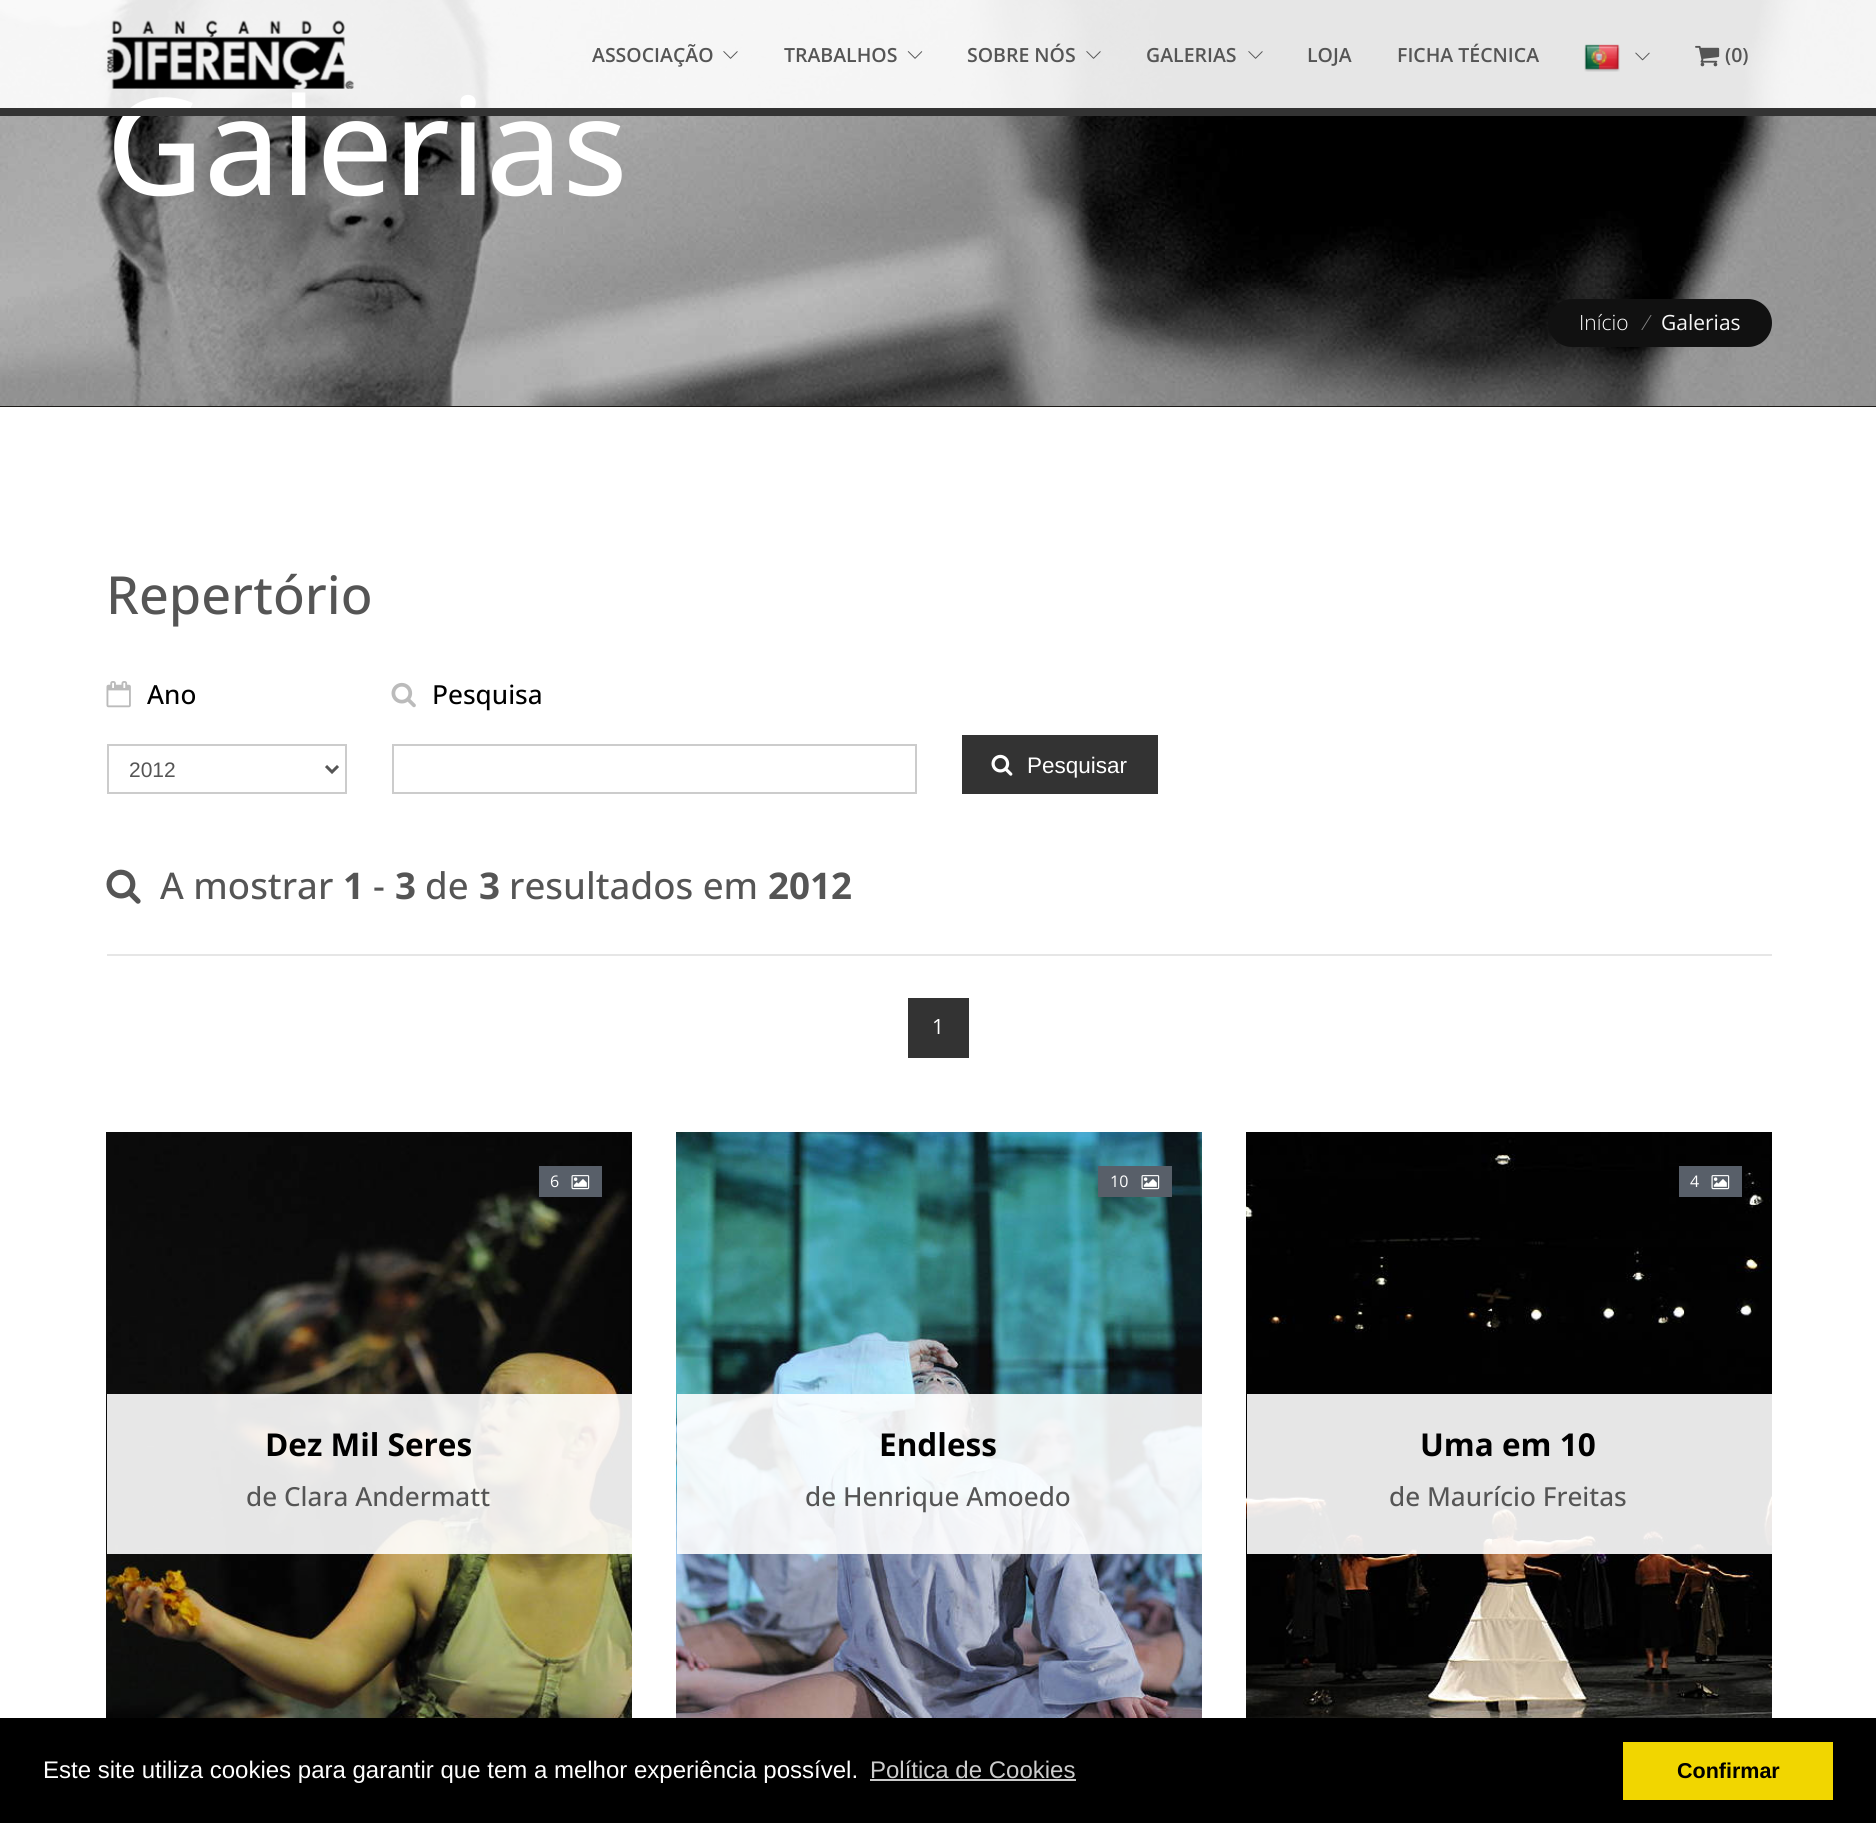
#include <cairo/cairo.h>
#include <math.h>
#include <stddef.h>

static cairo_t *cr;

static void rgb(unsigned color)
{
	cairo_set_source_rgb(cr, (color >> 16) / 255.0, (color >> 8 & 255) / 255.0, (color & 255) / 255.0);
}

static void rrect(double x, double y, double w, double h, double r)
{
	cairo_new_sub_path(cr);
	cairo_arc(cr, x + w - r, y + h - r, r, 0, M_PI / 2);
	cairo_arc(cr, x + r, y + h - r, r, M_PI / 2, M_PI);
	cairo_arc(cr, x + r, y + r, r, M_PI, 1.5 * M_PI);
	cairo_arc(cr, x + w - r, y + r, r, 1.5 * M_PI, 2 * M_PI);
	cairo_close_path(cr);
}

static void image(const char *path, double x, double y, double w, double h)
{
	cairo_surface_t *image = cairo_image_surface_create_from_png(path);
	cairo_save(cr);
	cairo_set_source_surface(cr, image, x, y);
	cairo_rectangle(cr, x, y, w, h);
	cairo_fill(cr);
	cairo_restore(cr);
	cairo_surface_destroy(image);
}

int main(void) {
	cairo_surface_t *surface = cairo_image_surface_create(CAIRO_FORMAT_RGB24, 1876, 1823);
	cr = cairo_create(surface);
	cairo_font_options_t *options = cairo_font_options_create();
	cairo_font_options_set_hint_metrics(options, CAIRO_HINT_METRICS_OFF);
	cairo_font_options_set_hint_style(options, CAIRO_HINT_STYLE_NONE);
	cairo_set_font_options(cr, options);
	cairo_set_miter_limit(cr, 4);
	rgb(0xffffff);
	cairo_paint(cr);
	rgb(0x1c1a17);
	cairo_rectangle(cr, 0, 406, 1876, 1);
	cairo_fill(cr);
	image("img/9.png", 0, 0, 1876, 406);
	rgb(0x111111);
	rrect(1548, 299, 224, 48, 24);
	cairo_fill(cr);
	image("img/10.png", 106, 681, 25, 27);
	cairo_rectangle(cr, 108, 745, 238, 48);
	rgb(0xcccccc);
	cairo_stroke(cr);
	cairo_new_path(cr);
	cairo_move_to(cr, 326, 766);
	cairo_line_to(cr, 332, 772);
	cairo_line_to(cr, 338, 766);
	rgb(0x555555);
	cairo_set_line_width(cr, 3);
	cairo_stroke(cr);
	image("img/11.png", 391, 682, 25, 26);
	cairo_rectangle(cr, 393, 745, 523, 48);
	rgb(0xcccccc);
	cairo_set_line_width(cr, 2);
	cairo_stroke(cr);
	rgb(0x333333);
	cairo_rectangle(cr, 962, 735, 196, 59);
	cairo_fill(cr);
	image("img/12.png", 991, 754, 22, 22);
	image("img/13.png", 106, 869, 35, 35);
	rgb(0xe6e6e6);
	cairo_rectangle(cr, 107, 954, 1665, 2);
	cairo_fill(cr);
	rgb(0x333333);
	cairo_rectangle(cr, 908, 998, 61, 60);
	cairo_fill(cr);
	image("img/14.png", 106, 1132, 526, 586);
	rgb(0x585f69);
	cairo_rectangle(cr, 539, 1166, 63, 31);
	cairo_fill(cr);
	image("img/15.png", 571, 1175, 19, 15);
	cairo_set_source_rgba(cr, 1, 1, 1, 0.9);
	cairo_rectangle(cr, 107, 1394, 525, 160);
	cairo_fill(cr);
	image("img/16.png", 676, 1132, 526, 586);
	rgb(0x585f69);
	cairo_rectangle(cr, 1098, 1166, 74, 31);
	cairo_fill(cr);
	image("img/15.png", 1141, 1175, 19, 15);
	cairo_set_source_rgba(cr, 1, 1, 1, 0.9);
	cairo_rectangle(cr, 677, 1394, 525, 160);
	cairo_fill(cr);
	image("img/17.png", 1246, 1132, 526, 586);
	rgb(0x585f69);
	cairo_rectangle(cr, 1679, 1166, 63, 31);
	cairo_fill(cr);
	image("img/15.png", 1711, 1175, 19, 15);
	cairo_set_source_rgba(cr, 1, 1, 1, 0.9);
	cairo_rectangle(cr, 1247, 1394, 525, 160);
	cairo_fill(cr);
	rgb(0x000000);
	cairo_rectangle(cr, 0, 1718, 1876, 105);
	cairo_fill(cr);
	rgb(0xcccccc);
	cairo_rectangle(cr, 870, 1779, 206, 2);
	cairo_fill(cr);
	rgb(0xf1d600);
	cairo_rectangle(cr, 1623, 1742, 210, 58);
	cairo_fill(cr);
	cairo_select_font_face(cr, "Open Sans Medium", CAIRO_FONT_SLANT_NORMAL, CAIRO_FONT_WEIGHT_NORMAL);
	cairo_set_font_size(cr, 135);
	rgb(0xffffff);
	cairo_move_to(cr, 106, 195);
	cairo_show_text(cr, "Galerias");
	cairo_set_source_rgba(cr, 1, 1, 1, 0.9);
	cairo_rectangle(cr, 0, 0, 1876, 108);
	cairo_fill(cr);
	image("img/7.png", 1635, 52, 15, 9);
	image("img/6.png", 1584, 44, 36, 28);
	image("img/5.png", 1248, 51, 15, 8);
	cairo_select_font_face(cr, "Open Sans SemiBold", CAIRO_FONT_SLANT_NORMAL, CAIRO_FONT_WEIGHT_NORMAL);
	cairo_set_font_size(cr, 19.5);
	rgb(0x555555);
	cairo_move_to(cr, 1146, 62);
	cairo_show_text(cr, "GALERIAS");
	image("img/4.png", 1086, 51, 15, 8);
	cairo_move_to(cr, 967, 62);
	cairo_show_text(cr, "SOBRE NÓS");
	image("img/3.png", 907, 51, 16, 8);
	cairo_move_to(cr, 784, 62);
	cairo_show_text(cr, "TRABALHOS");
	image("img/2.png", 723, 51, 15, 8);
	cairo_move_to(cr, 592, 62);
	cairo_show_text(cr, "ASSOCIAÇÃO");
	cairo_move_to(cr, 1725, 62);
	cairo_show_text(cr, "(0)");
	image("img/8.png", 1695, 45, 25, 22);
	cairo_move_to(cr, 1397, 62);
	cairo_show_text(cr, "FICHA TÉCNICA");
	cairo_move_to(cr, 1307, 62);
	cairo_show_text(cr, "LOJA");
	image("img/1.png", 107, 20, 247, 69);
	rgb(0x333333);
	cairo_rectangle(cr, 0, 108, 1876, 8);
	cairo_fill(cr);
	cairo_select_font_face(cr, "Open Sans Light", CAIRO_FONT_SLANT_NORMAL, CAIRO_FONT_WEIGHT_NORMAL);
	cairo_set_font_size(cr, 21);
	rgb(0xffffff);
	cairo_move_to(cr, 1579, 330);
	cairo_show_text(cr, "Início");
	cairo_select_font_face(cr, "Open Sans Light", CAIRO_FONT_SLANT_ITALIC, CAIRO_FONT_WEIGHT_NORMAL);
	rgb(0x888888);
	cairo_move_to(cr, 1641, 330);
	cairo_show_text(cr, "/");
	cairo_select_font_face(cr, "Open Sans", CAIRO_FONT_SLANT_NORMAL, CAIRO_FONT_WEIGHT_NORMAL);
	rgb(0xf7f7f7);
	cairo_move_to(cr, 1661, 330);
	cairo_show_text(cr, "Galerias");
	cairo_select_font_face(cr, "Open Sans Medium", CAIRO_FONT_SLANT_NORMAL, CAIRO_FONT_WEIGHT_NORMAL);
	cairo_set_font_size(cr, 52.5);
	rgb(0x555555);
	cairo_move_to(cr, 106, 614);
	cairo_show_text(cr, "Repertório");
	cairo_set_font_size(cr, 26.25);
	rgb(0x000000);
	cairo_move_to(cr, 147, 704);
	cairo_show_text(cr, "Ano");
	cairo_select_font_face(cr, "Liberation Sans", CAIRO_FONT_SLANT_NORMAL, CAIRO_FONT_WEIGHT_NORMAL);
	cairo_set_font_size(cr, 21);
	rgb(0x555555);
	cairo_move_to(cr, 129, 777);
	cairo_show_text(cr, "2012");
	cairo_select_font_face(cr, "Open Sans Medium", CAIRO_FONT_SLANT_NORMAL, CAIRO_FONT_WEIGHT_NORMAL);
	cairo_set_font_size(cr, 26.25);
	rgb(0x000000);
	cairo_move_to(cr, 432, 704);
	cairo_show_text(cr, "Pesquisa");
	cairo_select_font_face(cr, "Liberation Sans", CAIRO_FONT_SLANT_NORMAL, CAIRO_FONT_WEIGHT_NORMAL);
	cairo_set_font_size(cr, 22.5);
	rgb(0xffffff);
	cairo_move_to(cr, 1027, 773);
	cairo_show_text(cr, "Pesquisar");
	cairo_select_font_face(cr, "Open Sans Medium", CAIRO_FONT_SLANT_NORMAL, CAIRO_FONT_WEIGHT_NORMAL);
	cairo_set_font_size(cr, 36.75);
	rgb(0x555555);
	cairo_move_to(cr, 160, 899);
	cairo_show_text(cr, "A mostrar");
	cairo_select_font_face(cr, "Open Sans", CAIRO_FONT_SLANT_NORMAL, CAIRO_FONT_WEIGHT_BOLD);
	cairo_move_to(cr, 343, 899);
	cairo_show_text(cr, "1");
	cairo_select_font_face(cr, "Open Sans Medium", CAIRO_FONT_SLANT_NORMAL, CAIRO_FONT_WEIGHT_NORMAL);
	cairo_move_to(cr, 373, 899);
	cairo_show_text(cr, "-");
	cairo_select_font_face(cr, "Open Sans", CAIRO_FONT_SLANT_NORMAL, CAIRO_FONT_WEIGHT_BOLD);
	cairo_move_to(cr, 395, 899);
	cairo_show_text(cr, "3");
	cairo_select_font_face(cr, "Open Sans Medium", CAIRO_FONT_SLANT_NORMAL, CAIRO_FONT_WEIGHT_NORMAL);
	cairo_move_to(cr, 425, 899);
	cairo_show_text(cr, "de");
	cairo_select_font_face(cr, "Open Sans", CAIRO_FONT_SLANT_NORMAL, CAIRO_FONT_WEIGHT_BOLD);
	cairo_move_to(cr, 479, 899);
	cairo_show_text(cr, "3");
	cairo_select_font_face(cr, "Open Sans Medium", CAIRO_FONT_SLANT_NORMAL, CAIRO_FONT_WEIGHT_NORMAL);
	cairo_move_to(cr, 509, 899);
	cairo_show_text(cr, "resultados em");
	cairo_select_font_face(cr, "Open Sans", CAIRO_FONT_SLANT_NORMAL, CAIRO_FONT_WEIGHT_BOLD);
	cairo_move_to(cr, 768, 899);
	cairo_show_text(cr, "2012");
	cairo_select_font_face(cr, "Open Sans", CAIRO_FONT_SLANT_NORMAL, CAIRO_FONT_WEIGHT_NORMAL);
	cairo_set_font_size(cr, 21);
	rgb(0xffffff);
	cairo_move_to(cr, 932, 1034);
	cairo_show_text(cr, "1");
	cairo_set_font_size(cr, 16);
	cairo_move_to(cr, 550, 1187);
	cairo_show_text(cr, "6");
	cairo_select_font_face(cr, "Open Sans", CAIRO_FONT_SLANT_NORMAL, CAIRO_FONT_WEIGHT_BOLD);
	cairo_set_font_size(cr, 31.5);
	rgb(0x000000);
	cairo_move_to(cr, 265, 1456);
	cairo_show_text(cr, "Dez Mil Seres");
	cairo_select_font_face(cr, "Open Sans Medium", CAIRO_FONT_SLANT_NORMAL, CAIRO_FONT_WEIGHT_NORMAL);
	cairo_set_font_size(cr, 26.25);
	rgb(0x555555);
	cairo_move_to(cr, 246, 1506);
	cairo_show_text(cr, "de Clara Andermatt");
	cairo_select_font_face(cr, "Open Sans", CAIRO_FONT_SLANT_NORMAL, CAIRO_FONT_WEIGHT_NORMAL);
	cairo_set_font_size(cr, 16);
	rgb(0xffffff);
	cairo_move_to(cr, 1110, 1187);
	cairo_show_text(cr, "10");
	cairo_select_font_face(cr, "Open Sans", CAIRO_FONT_SLANT_NORMAL, CAIRO_FONT_WEIGHT_BOLD);
	cairo_set_font_size(cr, 31.5);
	rgb(0x000000);
	cairo_move_to(cr, 879, 1456);
	cairo_show_text(cr, "Endless");
	cairo_select_font_face(cr, "Open Sans Medium", CAIRO_FONT_SLANT_NORMAL, CAIRO_FONT_WEIGHT_NORMAL);
	cairo_set_font_size(cr, 26.25);
	rgb(0x555555);
	cairo_move_to(cr, 805, 1506);
	cairo_show_text(cr, "de Henrique Amoedo");
	cairo_select_font_face(cr, "Open Sans", CAIRO_FONT_SLANT_NORMAL, CAIRO_FONT_WEIGHT_NORMAL);
	cairo_set_font_size(cr, 16);
	rgb(0xffffff);
	cairo_move_to(cr, 1690, 1187);
	cairo_show_text(cr, "4");
	cairo_select_font_face(cr, "Open Sans", CAIRO_FONT_SLANT_NORMAL, CAIRO_FONT_WEIGHT_BOLD);
	cairo_set_font_size(cr, 31.5);
	rgb(0x000000);
	cairo_move_to(cr, 1420, 1456);
	cairo_show_text(cr, "Uma em 10");
	cairo_select_font_face(cr, "Open Sans Medium", CAIRO_FONT_SLANT_NORMAL, CAIRO_FONT_WEIGHT_NORMAL);
	cairo_set_font_size(cr, 26.25);
	rgb(0x555555);
	cairo_move_to(cr, 1389, 1506);
	cairo_show_text(cr, "de Maurício Freitas");
	cairo_select_font_face(cr, "Liberation Sans", CAIRO_FONT_SLANT_NORMAL, CAIRO_FONT_WEIGHT_NORMAL);
	cairo_set_font_size(cr, 24);
	rgb(0xffffff);
	cairo_move_to(cr, 43, 1778);
	cairo_show_text(cr, "Este site utiliza cookies para garantir que tem a melhor experiência possível.");
	rgb(0xcccccc);
	cairo_move_to(cr, 870, 1778);
	cairo_show_text(cr, "Política de Cookies");
	cairo_select_font_face(cr, "Liberation Sans", CAIRO_FONT_SLANT_NORMAL, CAIRO_FONT_WEIGHT_BOLD);
	cairo_set_font_size(cr, 21.5);
	rgb(0x000000);
	cairo_move_to(cr, 1677, 1778);
	cairo_show_text(cr, "Confirmar");
	cairo_surface_write_to_png(surface, "page.png");
	cairo_font_options_destroy(options);
	cairo_destroy(cr);
	cairo_surface_destroy(surface);
	return 0;
}
